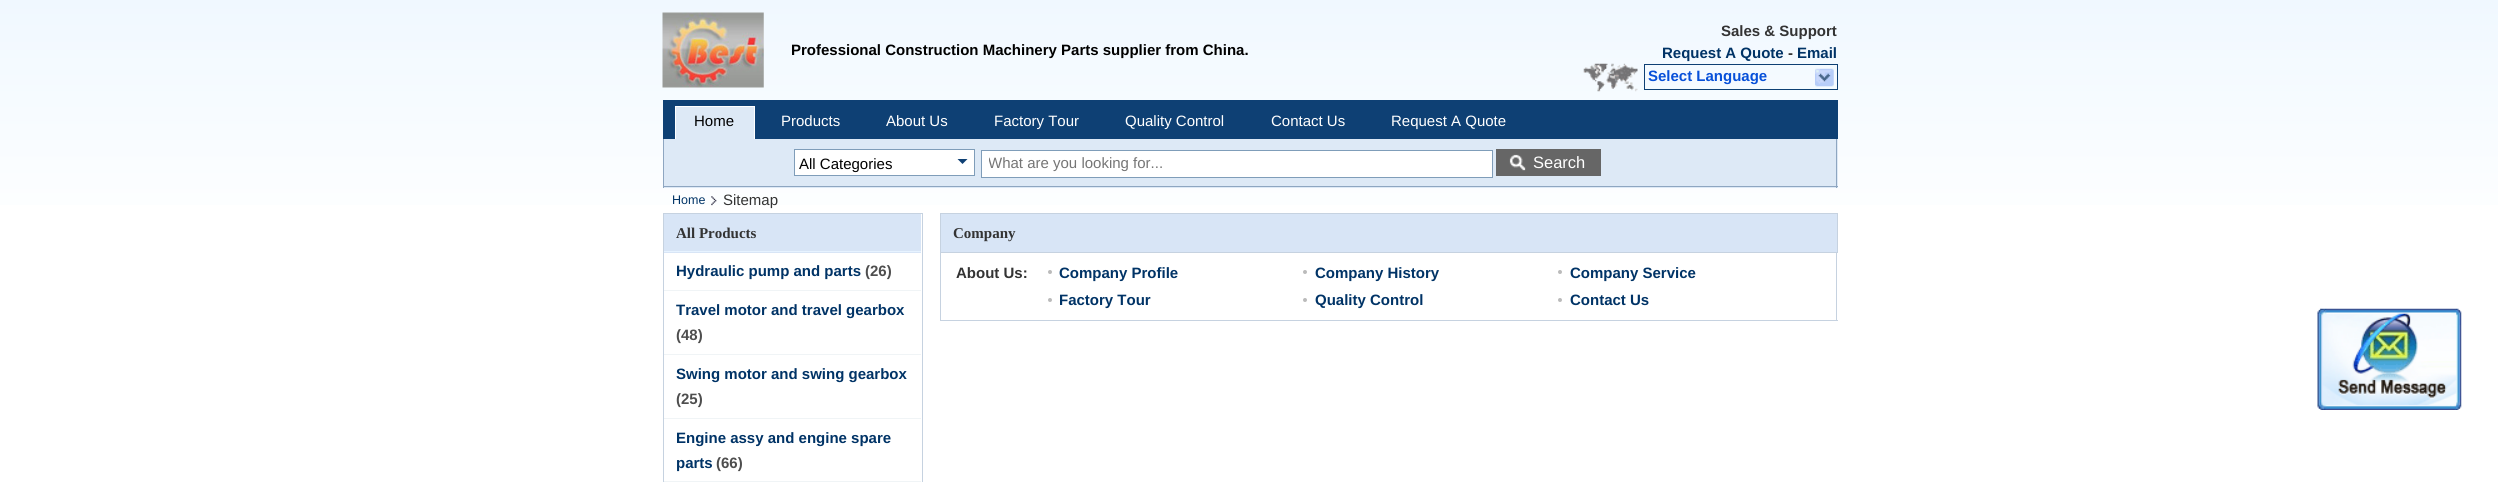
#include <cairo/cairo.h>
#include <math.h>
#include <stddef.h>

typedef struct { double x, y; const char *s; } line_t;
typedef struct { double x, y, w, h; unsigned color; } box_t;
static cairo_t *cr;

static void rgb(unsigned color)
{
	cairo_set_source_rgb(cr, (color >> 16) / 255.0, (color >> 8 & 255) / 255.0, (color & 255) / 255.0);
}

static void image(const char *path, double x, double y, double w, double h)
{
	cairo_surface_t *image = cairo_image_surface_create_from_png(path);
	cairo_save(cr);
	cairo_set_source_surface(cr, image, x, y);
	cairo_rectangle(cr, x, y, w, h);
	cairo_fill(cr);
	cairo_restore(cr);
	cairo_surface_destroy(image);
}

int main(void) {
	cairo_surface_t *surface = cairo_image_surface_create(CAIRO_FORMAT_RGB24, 2498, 482);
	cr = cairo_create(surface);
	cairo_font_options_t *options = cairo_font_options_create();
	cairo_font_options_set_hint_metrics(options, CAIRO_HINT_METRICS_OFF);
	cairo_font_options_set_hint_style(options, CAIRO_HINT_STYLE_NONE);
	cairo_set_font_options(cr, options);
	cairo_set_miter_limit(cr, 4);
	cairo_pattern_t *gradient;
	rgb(0xffffff);
	cairo_paint(cr);
	gradient = cairo_pattern_create_linear(1249, 0, 1249, 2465);
	cairo_pattern_add_color_stop_rgba(gradient, 0, 0.941, 0.973, 1, 1);
	cairo_pattern_add_color_stop_rgba(gradient, 0.1, 1, 1, 1, 1);
	cairo_pattern_add_color_stop_rgba(gradient, 1, 1, 1, 1, 1);
	cairo_set_source(cr, gradient);
	cairo_pattern_destroy(gradient);
	cairo_rectangle(cr, 0, 0, 2498, 205);
	cairo_fill(cr);
	image("img/1.png", 662, 12, 102, 76);
	image("img/2.png", 1583, 63, 55, 29);
	cairo_rectangle(cr, 1644.5, 64.5, 193, 25);
	rgb(0x0e4074);
	cairo_set_line_width(cr, 1);
	cairo_stroke(cr);
	image("img/3.png", 1815, 68, 19, 19);
	{
		static const box_t items[] = {
			{664, 139, 1174, 49, 0xdde9f6},
			{1836, 138, 1, 50, 0x8ea6c1},
			{663, 186, 1175, 1, 0x8ea6c1},
			{663, 138, 1, 50, 0x8ea6c1},
			{663, 100, 1175, 39, 0x0e4074},
			{676, 107, 78, 32, 0xdde9f6},
		};
		for (size_t i = 0; i < sizeof items / sizeof *items; i++) {
			rgb(items[i].color);
			cairo_rectangle(cr, items[i].x, items[i].y, items[i].w, items[i].h);
			cairo_fill(cr);
		}
	}
	cairo_save(cr);
	cairo_rectangle(cr, 663, 100, 1175, 39);
	cairo_clip(cr);
	cairo_rectangle(cr, 675.5, 106.5, 79, 49);
	rgb(0xffffff);
	cairo_stroke(cr);
	cairo_restore(cr);
	cairo_rectangle(cr, 794.5, 149.5, 180, 26);
	rgb(0x7f9db9);
	cairo_stroke(cr);
	rgb(0xffffff);
	cairo_rectangle(cr, 795, 150, 179, 25);
	cairo_fill(cr);
	rgb(0x0e4074);
	cairo_new_path(cr);
	cairo_move_to(cr, 957.5, 159);
	cairo_line_to(cr, 967.5, 159);
	cairo_line_to(cr, 962.5, 164);
	cairo_close_path(cr);
	cairo_fill(cr);
	rgb(0xffffff);
	cairo_rectangle(cr, 981.5, 150.5, 511, 27);
	cairo_fill_preserve(cr);
	rgb(0x7f9db9);
	cairo_stroke(cr);
	rgb(0x666666);
	cairo_rectangle(cr, 1496, 149, 105, 27);
	cairo_fill(cr);
	image("img/4.png", 1509, 154, 17, 17);
	image("img/5.png", 711, 196, 6, 10);
	cairo_rectangle(cr, 663.5, 213.5, 259, 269);
	rgb(0xc6d2e0);
	cairo_stroke(cr);
	{
		static const box_t items[] = {
			{664, 214, 257, 39, 0xd8e5f6},
			{664, 251, 257, 1, 0xe7f3ff},
			{664, 290, 257, 1, 0xf0f4f6},
			{664, 354, 257, 1, 0xf0f4f6},
			{664, 418, 257, 1, 0xf0f4f6},
			{664, 481, 257, 1, 0xf0f4f6},
		};
		for (size_t i = 0; i < sizeof items / sizeof *items; i++) {
			rgb(items[i].color);
			cairo_rectangle(cr, items[i].x, items[i].y, items[i].w, items[i].h);
			cairo_fill(cr);
		}
	}
	rgb(0xd8e5f6);
	cairo_rectangle(cr, 940.5, 213.5, 897, 39);
	cairo_fill_preserve(cr);
	rgb(0xc6d2e0);
	cairo_stroke(cr);
	{
		static const box_t items[] = {
			{1836, 253, 1, 68, 0xc6d2e0},
			{940, 320, 898, 1, 0xc6d2e0},
			{940, 253, 1, 68, 0xc6d2e0},
		};
		for (size_t i = 0; i < sizeof items / sizeof *items; i++) {
			rgb(items[i].color);
			cairo_rectangle(cr, items[i].x, items[i].y, items[i].w, items[i].h);
			cairo_fill(cr);
		}
	}
	rgb(0xbbbbbb);
	cairo_arc(cr, 1050, 272, 2, 0, 2 * M_PI);
	cairo_fill(cr);
	cairo_arc(cr, 1305, 272, 2, 0, 2 * M_PI);
	cairo_fill(cr);
	cairo_arc(cr, 1560, 272, 2, 0, 2 * M_PI);
	cairo_fill(cr);
	cairo_arc(cr, 1050, 300, 2, 0, 2 * M_PI);
	cairo_fill(cr);
	cairo_arc(cr, 1305, 300, 2, 0, 2 * M_PI);
	cairo_fill(cr);
	cairo_arc(cr, 1560, 300, 2, 0, 2 * M_PI);
	cairo_fill(cr);
	image("img/6.png", 2317, 308, 145, 102);
	cairo_select_font_face(cr, "Liberation Sans", CAIRO_FONT_SLANT_NORMAL, CAIRO_FONT_WEIGHT_BOLD);
	cairo_set_font_size(cr, 15);
	rgb(0x000000);
	cairo_move_to(cr, 791, 55);
	cairo_show_text(cr, "Professional Construction Machinery Parts supplier from China.");
	rgb(0x333333);
	cairo_move_to(cr, 1721, 36);
	cairo_show_text(cr, "Sales & Support");
	rgb(0x003366);
	cairo_move_to(cr, 1662, 58);
	cairo_show_text(cr, "Request A Quote");
	rgb(0x333333);
	cairo_move_to(cr, 1788, 58);
	cairo_show_text(cr, "-");
	rgb(0x003366);
	cairo_move_to(cr, 1797, 58);
	cairo_show_text(cr, "Email");
	rgb(0x0750d9);
	cairo_move_to(cr, 1648, 81);
	cairo_show_text(cr, "Select Language");
	cairo_select_font_face(cr, "Liberation Sans", CAIRO_FONT_SLANT_NORMAL, CAIRO_FONT_WEIGHT_NORMAL);
	rgb(0x000000);
	cairo_move_to(cr, 694, 126);
	cairo_show_text(cr, "Home");
	rgb(0xffffff);
	{
		static const line_t items[] = {
			{781, 126, "Products"},
			{886, 126, "About Us"},
			{994, 126, "Factory Tour"},
			{1125, 126, "Quality Control"},
			{1271, 126, "Contact Us"},
			{1391, 126, "Request A Quote"},
		};
		for (size_t i = 0; i < sizeof items / sizeof *items; i++) {
			cairo_move_to(cr, items[i].x, items[i].y);
			cairo_show_text(cr, items[i].s);
		}
	}
	rgb(0x000000);
	cairo_move_to(cr, 799, 169);
	cairo_show_text(cr, "All Categories");
	cairo_save(cr);
	cairo_rectangle(cr, 989, 155, 500, 18);
	cairo_clip(cr);
	rgb(0x757575);
	cairo_move_to(cr, 988, 168);
	cairo_show_text(cr, "What are you looking for...");
	cairo_restore(cr);
	cairo_set_font_size(cr, 16.5);
	rgb(0xffffff);
	cairo_move_to(cr, 1533, 168);
	cairo_show_text(cr, "Search");
	cairo_set_font_size(cr, 12.5);
	rgb(0x003366);
	cairo_move_to(cr, 672, 204);
	cairo_show_text(cr, "Home");
	cairo_set_font_size(cr, 15);
	rgb(0x333333);
	cairo_move_to(cr, 723, 205);
	cairo_show_text(cr, "Sitemap");
	cairo_select_font_face(cr, "Liberation Serif", CAIRO_FONT_SLANT_NORMAL, CAIRO_FONT_WEIGHT_BOLD);
	cairo_move_to(cr, 676, 238);
	cairo_show_text(cr, "All Products");
	cairo_select_font_face(cr, "Liberation Sans", CAIRO_FONT_SLANT_NORMAL, CAIRO_FONT_WEIGHT_BOLD);
	rgb(0x003366);
	cairo_move_to(cr, 676, 276);
	cairo_show_text(cr, "Hydraulic pump and parts");
	rgb(0x4e4e4e);
	cairo_move_to(cr, 865, 276);
	cairo_show_text(cr, "(26)");
	rgb(0x003366);
	cairo_move_to(cr, 676, 315);
	cairo_show_text(cr, "Travel motor and travel gearbox");
	rgb(0x4e4e4e);
	cairo_move_to(cr, 676, 340);
	cairo_show_text(cr, "(48)");
	rgb(0x003366);
	cairo_move_to(cr, 676, 379);
	cairo_show_text(cr, "Swing motor and swing gearbox");
	rgb(0x4e4e4e);
	cairo_move_to(cr, 676, 404);
	cairo_show_text(cr, "(25)");
	rgb(0x003366);
	cairo_move_to(cr, 676, 443);
	cairo_show_text(cr, "Engine assy and engine spare");
	cairo_move_to(cr, 676, 468);
	cairo_show_text(cr, "parts");
	rgb(0x4e4e4e);
	cairo_move_to(cr, 716, 468);
	cairo_show_text(cr, "(66)");
	cairo_select_font_face(cr, "Liberation Serif", CAIRO_FONT_SLANT_NORMAL, CAIRO_FONT_WEIGHT_BOLD);
	rgb(0x333333);
	cairo_move_to(cr, 953, 238);
	cairo_show_text(cr, "Company");
	cairo_select_font_face(cr, "Liberation Sans", CAIRO_FONT_SLANT_NORMAL, CAIRO_FONT_WEIGHT_BOLD);
	cairo_move_to(cr, 956, 278);
	cairo_show_text(cr, "About Us:");
	rgb(0x003366);
	{
		static const line_t items[] = {
			{1059, 278, "Company Profile"},
			{1315, 278, "Company History"},
			{1570, 278, "Company Service"},
			{1059, 305, "Factory Tour"},
			{1315, 305, "Quality Control"},
			{1570, 305, "Contact Us"},
		};
		for (size_t i = 0; i < sizeof items / sizeof *items; i++) {
			cairo_move_to(cr, items[i].x, items[i].y);
			cairo_show_text(cr, items[i].s);
		}
	}
	cairo_surface_write_to_png(surface, "page.png");
	cairo_font_options_destroy(options);
	cairo_destroy(cr);
	cairo_surface_destroy(surface);
	return 0;
}
